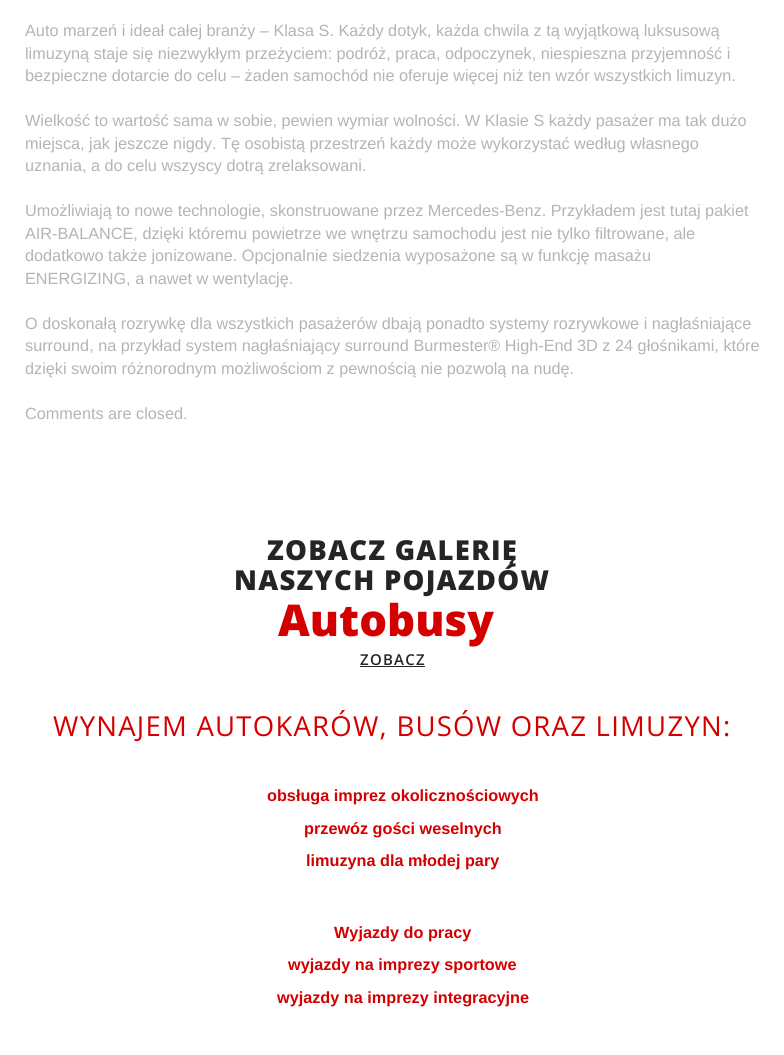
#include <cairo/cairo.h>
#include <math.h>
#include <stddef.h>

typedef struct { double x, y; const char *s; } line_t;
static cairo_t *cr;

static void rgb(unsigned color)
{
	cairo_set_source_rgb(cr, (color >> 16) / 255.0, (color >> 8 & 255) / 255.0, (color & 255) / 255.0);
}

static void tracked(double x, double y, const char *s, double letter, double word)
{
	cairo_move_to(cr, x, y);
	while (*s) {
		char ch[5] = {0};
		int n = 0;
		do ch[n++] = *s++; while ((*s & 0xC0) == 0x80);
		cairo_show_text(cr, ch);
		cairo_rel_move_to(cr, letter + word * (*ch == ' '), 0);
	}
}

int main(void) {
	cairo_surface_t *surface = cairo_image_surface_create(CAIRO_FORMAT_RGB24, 784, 1055);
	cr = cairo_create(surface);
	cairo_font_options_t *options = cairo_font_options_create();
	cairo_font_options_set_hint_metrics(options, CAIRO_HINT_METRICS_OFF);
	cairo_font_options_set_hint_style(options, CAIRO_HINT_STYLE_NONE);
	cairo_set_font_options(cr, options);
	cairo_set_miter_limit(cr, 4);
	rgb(0xffffff);
	cairo_paint(cr);
	rgb(0x252524);
	cairo_rectangle(cr, 360, 666, 65, 1);
	cairo_fill(cr);
	cairo_select_font_face(cr, "Liberation Sans", CAIRO_FONT_SLANT_NORMAL, CAIRO_FONT_WEIGHT_NORMAL);
	cairo_set_font_size(cr, 16.25);
	rgb(0xb4b4b4);
	{
		static const line_t items[] = {
			{25, 36, "Auto marzeń i ideał całej branży – Klasa S. Każdy dotyk, każda chwila z tą wyjątkową luksusową"},
			{25, 59, "limuzyną staje się niezwykłym przeżyciem: podróż, praca, odpoczynek, niespieszna przyjemność i"},
			{25, 81, "bezpieczne dotarcie do celu – żaden samochód nie oferuje więcej niż ten wzór wszystkich limuzyn."},
			{25, 126, "Wielkość to wartość sama w sobie, pewien wymiar wolności. W Klasie S każdy pasażer ma tak dużo"},
			{25, 149, "miejsca, jak jeszcze nigdy. Tę osobistą przestrzeń każdy może wykorzystać według własnego"},
			{25, 171, "uznania, a do celu wszyscy dotrą zrelaksowani."},
			{25, 216, "Umożliwiają to nowe technologie, skonstruowane przez Mercedes-Benz. Przykładem jest tutaj pakiet"},
			{25, 239, "AIR-BALANCE, dzięki któremu powietrze we wnętrzu samochodu jest nie tylko filtrowane, ale"},
			{25, 261, "dodatkowo także jonizowane. Opcjonalnie siedzenia wyposażone są w funkcję masażu"},
			{25, 284, "ENERGIZING, a nawet w wentylację."},
			{25, 329, "O doskonałą rozrywkę dla wszystkich pasażerów dbają ponadto systemy rozrywkowe i nagłaśniające"},
			{25, 351, "surround, na przykład system nagłaśniający surround Burmester® High-End 3D z 24 głośnikami, które"},
			{25, 374, "dzięki swoim różnorodnym możliwościom z pewnością nie pozwolą na nudę."},
			{25, 419, "Comments are closed."},
		};
		for (size_t i = 0; i < sizeof items / sizeof *items; i++) {
			cairo_move_to(cr, items[i].x, items[i].y);
			cairo_show_text(cr, items[i].s);
		}
	}
	cairo_select_font_face(cr, "Open Sans ExtraBold", CAIRO_FONT_SLANT_NORMAL, CAIRO_FONT_WEIGHT_NORMAL);
	cairo_set_font_size(cr, 27.5);
	rgb(0x252525);
	tracked(267, 560, "ZOBACZ GALERIĘ", 1.25, 0);
	tracked(234, 590, "NASZYCH POJAZDÓW", 1.25, 0);
	cairo_set_font_size(cr, 43.75);
	rgb(0xd40000);
	cairo_move_to(cr, 278, 636);
	cairo_show_text(cr, "Autobusy");
	cairo_select_font_face(cr, "Open Sans SemiBold", CAIRO_FONT_SLANT_NORMAL, CAIRO_FONT_WEIGHT_NORMAL);
	cairo_set_font_size(cr, 15);
	rgb(0x252525);
	tracked(360, 665, "ZOBACZ", 1.25, 0);
	cairo_select_font_face(cr, "Open Sans", CAIRO_FONT_SLANT_NORMAL, CAIRO_FONT_WEIGHT_NORMAL);
	cairo_set_font_size(cr, 27.5);
	rgb(0xd40000);
	tracked(53, 736, "WYNAJEM AUTOKARÓW, BUSÓW ORAZ LIMUZYN:", 1.25, 0);
	cairo_select_font_face(cr, "Liberation Sans", CAIRO_FONT_SLANT_NORMAL, CAIRO_FONT_WEIGHT_BOLD);
	cairo_set_font_size(cr, 16.25);
	{
		static const line_t items[] = {
			{267, 801, "obsługa imprez okolicznościowych"},
			{304, 834, "przewóz gości weselnych"},
			{306, 866, "limuzyna dla młodej pary"},
			{334, 938, "Wyjazdy do pracy"},
			{288, 970, "wyjazdy na imprezy sportowe"},
			{277, 1003, "wyjazdy na imprezy integracyjne"},
		};
		for (size_t i = 0; i < sizeof items / sizeof *items; i++) {
			cairo_move_to(cr, items[i].x, items[i].y);
			cairo_show_text(cr, items[i].s);
		}
	}
	cairo_surface_write_to_png(surface, "page.png");
	cairo_font_options_destroy(options);
	cairo_destroy(cr);
	cairo_surface_destroy(surface);
	return 0;
}
